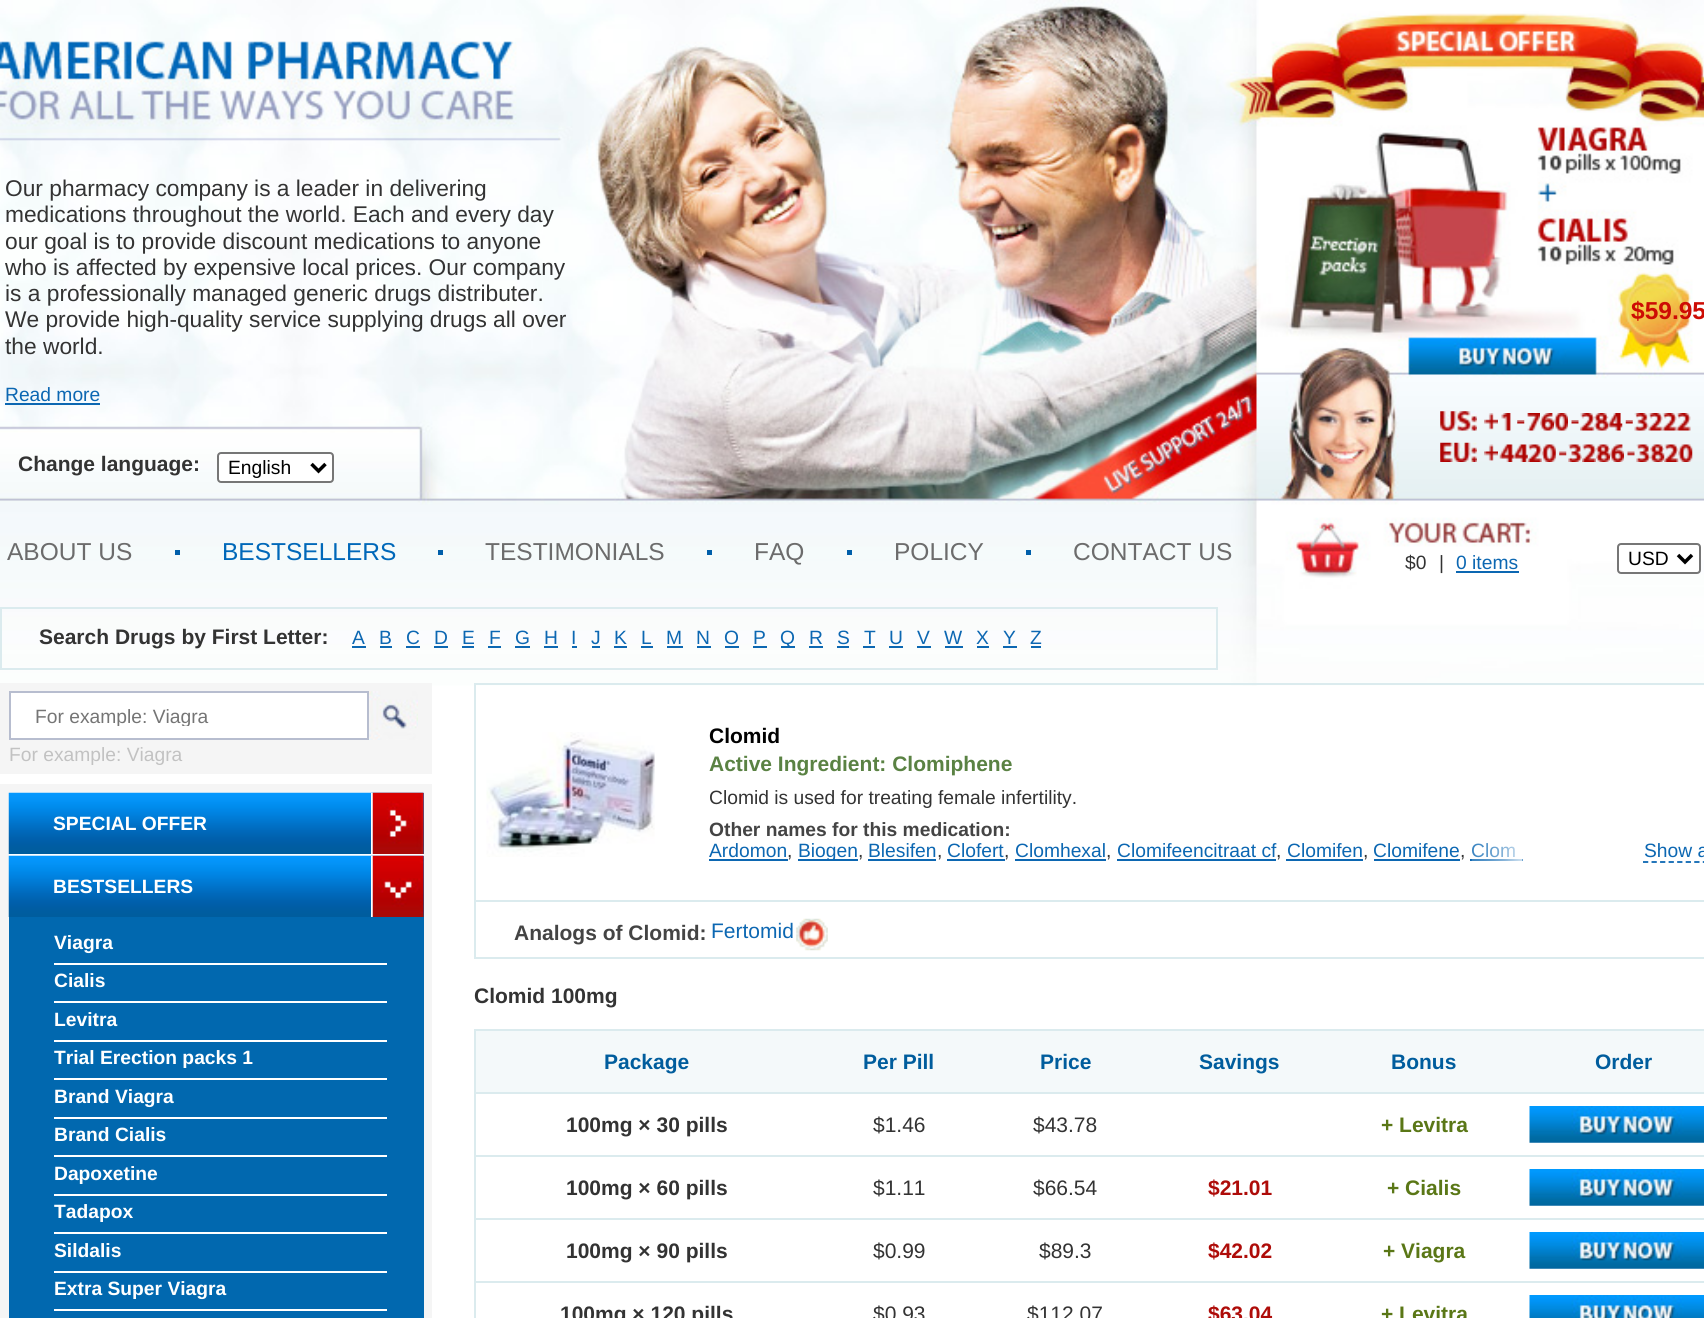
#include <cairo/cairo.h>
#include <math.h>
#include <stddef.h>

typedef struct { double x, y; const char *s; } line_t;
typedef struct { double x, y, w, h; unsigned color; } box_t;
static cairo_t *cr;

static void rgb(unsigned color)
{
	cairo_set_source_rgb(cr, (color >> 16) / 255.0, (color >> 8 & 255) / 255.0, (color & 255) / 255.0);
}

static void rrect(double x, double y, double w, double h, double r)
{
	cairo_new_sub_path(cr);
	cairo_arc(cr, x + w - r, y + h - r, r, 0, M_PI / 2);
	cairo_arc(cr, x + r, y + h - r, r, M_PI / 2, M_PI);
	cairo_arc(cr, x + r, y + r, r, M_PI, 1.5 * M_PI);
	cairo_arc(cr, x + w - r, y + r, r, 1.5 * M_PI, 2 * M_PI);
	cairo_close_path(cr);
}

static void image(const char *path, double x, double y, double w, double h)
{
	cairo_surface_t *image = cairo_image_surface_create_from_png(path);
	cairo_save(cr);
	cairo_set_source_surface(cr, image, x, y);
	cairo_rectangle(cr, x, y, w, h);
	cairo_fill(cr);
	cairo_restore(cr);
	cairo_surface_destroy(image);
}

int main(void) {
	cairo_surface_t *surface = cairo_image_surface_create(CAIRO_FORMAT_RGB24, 1704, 1318);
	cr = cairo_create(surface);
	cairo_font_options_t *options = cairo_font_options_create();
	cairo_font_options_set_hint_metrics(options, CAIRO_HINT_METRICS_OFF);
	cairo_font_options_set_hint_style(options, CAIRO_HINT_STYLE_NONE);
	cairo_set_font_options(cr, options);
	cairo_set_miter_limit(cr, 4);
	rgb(0xffffff);
	cairo_paint(cr);
	image("img/1.png", 0, 0, 1704, 686);
	rgb(0x0c67b2);
	cairo_rectangle(cr, 5, 403, 95, 2);
	cairo_fill(cr);
	rgb(0xffffff);
	rrect(218, 453, 115, 29, 3);
	cairo_fill_preserve(cr);
	rgb(0x767676);
	cairo_stroke(cr);
	cairo_new_path(cr);
	cairo_move_to(cr, 311.5, 464);
	cairo_line_to(cr, 318.5, 471);
	cairo_line_to(cr, 325.5, 464);
	rgb(0x000000);
	cairo_set_line_width(cr, 3.5);
	cairo_stroke(cr);
	{
		static const box_t items[] = {
			{175, 550, 5, 5, 0x005faa},
			{438, 550, 5, 5, 0x005faa},
			{707, 550, 5, 5, 0x005faa},
			{847, 550, 5, 5, 0x005faa},
			{1026, 550, 5, 5, 0x005faa},
		};
		for (size_t i = 0; i < sizeof items / sizeof *items; i++) {
			rgb(items[i].color);
			cairo_rectangle(cr, items[i].x, items[i].y, items[i].w, items[i].h);
			cairo_fill(cr);
		}
	}
	cairo_rectangle(cr, 1, 608, 1216, 61);
	rgb(0xdbebee);
	cairo_set_line_width(cr, 2);
	cairo_stroke(cr);
	{
		static const box_t items[] = {
			{352, 646, 14, 2, 0x0c67b2},
			{380, 646, 12, 2, 0x0c67b2},
			{406, 646, 14, 2, 0x0c67b2},
			{434, 646, 14, 2, 0x0c67b2},
			{462, 646, 12, 2, 0x0c67b2},
			{488, 646, 13, 2, 0x0c67b2},
			{515, 646, 15, 2, 0x0c67b2},
			{544, 646, 14, 2, 0x0c67b2},
			{572, 646, 5, 2, 0x0c67b2},
			{592, 646, 8, 2, 0x0c67b2},
			{614, 646, 13, 2, 0x0c67b2},
			{641, 646, 12, 2, 0x0c67b2},
			{667, 646, 16, 2, 0x0c67b2},
			{697, 646, 14, 2, 0x0c67b2},
			{725, 646, 14, 2, 0x0c67b2},
			{753, 646, 14, 2, 0x0c67b2},
			{781, 646, 14, 2, 0x0c67b2},
			{809, 646, 14, 2, 0x0c67b2},
			{837, 646, 12, 2, 0x0c67b2},
			{863, 646, 12, 2, 0x0c67b2},
			{889, 646, 14, 2, 0x0c67b2},
			{917, 646, 14, 2, 0x0c67b2},
			{945, 646, 18, 2, 0x0c67b2},
			{977, 646, 12, 2, 0x0c67b2},
			{1003, 646, 14, 2, 0x0c67b2},
			{1031, 646, 10, 2, 0x0c67b2},
		};
		for (size_t i = 0; i < sizeof items / sizeof *items; i++) {
			rgb(items[i].color);
			cairo_rectangle(cr, items[i].x, items[i].y, items[i].w, items[i].h);
			cairo_fill(cr);
		}
	}
	image("img/2.png", 1440, 411, 37, 20);
	image("img/3.png", 1484, 413, 14, 17);
	image("img/4.png", 1501, 413, 10, 18);
	image("img/5.png", 1517, 420, 8, 4);
	image("img/6.png", 1527, 413, 13, 18);
	image("img/7.png", 1540, 413, 14, 18);
	image("img/8.png", 1554, 413, 14, 18);
	image("img/9.png", 1571, 420, 8, 4);
	image("img/10.png", 1580, 413, 15, 18);
	image("img/11.png", 1594, 413, 15, 18);
	image("img/12.png", 1608, 413, 15, 18);
	image("img/13.png", 1625, 420, 8, 4);
	image("img/14.png", 1634, 413, 15, 18);
	image("img/15.png", 1648, 413, 15, 18);
	image("img/16.png", 1662, 413, 15, 18);
	image("img/16.png", 1676, 413, 15, 18);
	image("img/17.png", 1440, 442, 37, 20);
	image("img/18.png", 1484, 444, 14, 17);
	image("img/19.png", 1499, 444, 15, 18);
	image("img/20.png", 1513, 444, 15, 18);
	image("img/21.png", 1527, 444, 15, 18);
	image("img/22.png", 1541, 444, 15, 18);
	image("img/23.png", 1559, 451, 8, 5);
	image("img/24.png", 1568, 444, 14, 18);
	image("img/25.png", 1582, 444, 14, 18);
	image("img/26.png", 1596, 444, 14, 18);
	image("img/27.png", 1610, 444, 14, 18);
	image("img/28.png", 1627, 451, 8, 5);
	image("img/29.png", 1636, 444, 15, 18);
	image("img/30.png", 1650, 444, 15, 18);
	image("img/31.png", 1664, 444, 15, 18);
	image("img/32.png", 1678, 444, 15, 18);
	cairo_rectangle(cr, 1456, 571, 63, 2);
	cairo_fill(cr);
	rgb(0xffffff);
	rrect(1618, 544, 82, 29, 3);
	cairo_fill_preserve(cr);
	rgb(0x767676);
	cairo_stroke(cr);
	cairo_new_path(cr);
	cairo_move_to(cr, 1678, 555);
	cairo_line_to(cr, 1685, 562);
	cairo_line_to(cr, 1692, 555);
	rgb(0x000000);
	cairo_set_line_width(cr, 3.5);
	cairo_stroke(cr);
	cairo_rectangle(cr, 4.5, 687.5, 423, 82);
	rgb(0xf5f5f5);
	cairo_set_line_width(cr, 9);
	cairo_stroke(cr);
	cairo_rectangle(cr, 9, 692, 414, 73);
	cairo_fill(cr);
	rgb(0xffffff);
	cairo_rectangle(cr, 10, 692, 358, 47);
	cairo_fill_preserve(cr);
	rgb(0xb7bdcf);
	cairo_set_line_width(cr, 2);
	cairo_stroke(cr);
	image("img/33.png", 369, 691, 49, 49);
	cairo_rectangle(cr, 4.5, 788.5, 423, 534);
	rgb(0xf5f5f5);
	cairo_set_line_width(cr, 9);
	cairo_stroke(cr);
	rgb(0x0168af);
	cairo_rectangle(cr, 9, 793, 415, 525);
	cairo_fill(cr);
	image("img/34.png", 8, 792, 416, 62);
	rgb(0xffffff);
	cairo_rectangle(cr, 9, 854, 415, 2);
	cairo_fill(cr);
	cairo_rectangle(cr, 371, 793, 2, 61);
	cairo_fill(cr);
	image("img/35.png", 372, 792, 52, 62);
	image("img/36.png", 8, 855, 416, 62);
	cairo_rectangle(cr, 371, 856, 2, 61);
	cairo_fill(cr);
	image("img/37.png", 372, 855, 52, 62);
	{
		static const box_t items[] = {
			{54, 963, 333, 2, 0xffffff},
			{54, 1001, 333, 2, 0xffffff},
			{54, 1040, 333, 2, 0xffffff},
			{54, 1078, 333, 2, 0xffffff},
			{54, 1117, 333, 2, 0xffffff},
			{54, 1155, 333, 2, 0xffffff},
			{54, 1194, 333, 2, 0xffffff},
			{54, 1232, 333, 2, 0xffffff},
			{54, 1271, 333, 2, 0xffffff},
			{54, 1309, 333, 2, 0xffffff},
			{474, 683, 1230, 2, 0xdbebee},
			{474, 683, 2, 218, 0xdbebee},
			{709, 859, 79, 2, 0x0c67b2},
			{798, 859, 60, 2, 0x0c67b2},
			{868, 859, 68, 2, 0x0c67b2},
			{947, 859, 58, 2, 0x0c67b2},
			{1015, 859, 91, 2, 0x0c67b2},
			{1117, 859, 159, 2, 0x0c67b2},
			{1286, 859, 77, 2, 0x0c67b2},
			{1374, 859, 86, 2, 0x0c67b2},
			{1470, 859, 53, 2, 0x0c67b2},
		};
		for (size_t i = 0; i < sizeof items / sizeof *items; i++) {
			rgb(items[i].color);
			cairo_rectangle(cr, items[i].x, items[i].y, items[i].w, items[i].h);
			cairo_fill(cr);
		}
	}
	cairo_new_path(cr);
	cairo_move_to(cr, 1643, 862);
	cairo_line_to(cr, 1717, 862);
	cairo_set_line_width(cr, 1.8);
	cairo_set_dash(cr, (double[]){5.25, 3.29}, 2, 0);
	cairo_stroke(cr);
	rgb(0xdbebee);
	cairo_rectangle(cr, 476, 900, 1228, 2);
	cairo_fill(cr);
	image("img/39.png", 486, 732, 169, 125);
	cairo_rectangle(cr, 474, 957, 1230, 2);
	cairo_fill(cr);
	cairo_rectangle(cr, 474, 900, 2, 59);
	cairo_fill(cr);
	image("img/40.png", 796, 918, 32, 33);
	{
		static const box_t items[] = {
			{474, 1029, 1230, 2, 0xdbebee},
			{474, 1029, 2, 289, 0xdbebee},
			{476, 1031, 1228, 61, 0xf4f9fa},
			{476, 1092, 1228, 2, 0xdbebee},
			{476, 1155, 1228, 2, 0xdbebee},
		};
		for (size_t i = 0; i < sizeof items / sizeof *items; i++) {
			rgb(items[i].color);
			cairo_rectangle(cr, items[i].x, items[i].y, items[i].w, items[i].h);
			cairo_fill(cr);
		}
	}
	image("img/41.png", 1529, 1106, 175, 37);
	cairo_rectangle(cr, 476, 1218, 1228, 2);
	cairo_fill(cr);
	image("img/41.png", 1529, 1169, 175, 37);
	cairo_rectangle(cr, 476, 1281, 1228, 2);
	cairo_fill(cr);
	image("img/41.png", 1529, 1232, 175, 37);
	image("img/42.png", 1529, 1295, 175, 23);
	cairo_select_font_face(cr, "Liberation Sans", CAIRO_FONT_SLANT_NORMAL, CAIRO_FONT_WEIGHT_NORMAL);
	cairo_set_font_size(cr, 22.75);
	rgb(0x333333);
	{
		static const line_t items[] = {
			{5, 196, "Our pharmacy company is a leader in delivering"},
			{5, 222, "medications throughout the world. Each and every day"},
			{5, 249, "our goal is to provide discount medications to anyone"},
			{5, 275, "who is affected by expensive local prices. Our company"},
			{5, 301, "is a professionally managed generic drugs distributer."},
			{5, 327, "We provide high-quality service supplying drugs all over"},
			{5, 354, "the world."},
		};
		for (size_t i = 0; i < sizeof items / sizeof *items; i++) {
			cairo_move_to(cr, items[i].x, items[i].y);
			cairo_show_text(cr, items[i].s);
		}
	}
	cairo_set_font_size(cr, 19.25);
	rgb(0x0c67b2);
	cairo_move_to(cr, 5, 401);
	cairo_show_text(cr, "Read more");
	cairo_select_font_face(cr, "Liberation Sans", CAIRO_FONT_SLANT_NORMAL, CAIRO_FONT_WEIGHT_BOLD);
	cairo_set_font_size(cr, 21);
	rgb(0x333333);
	cairo_move_to(cr, 18, 471);
	cairo_show_text(cr, "Change language:");
	cairo_select_font_face(cr, "Liberation Sans", CAIRO_FONT_SLANT_NORMAL, CAIRO_FONT_WEIGHT_NORMAL);
	cairo_set_font_size(cr, 19.25);
	rgb(0x000000);
	cairo_move_to(cr, 228, 474);
	cairo_show_text(cr, "English");
	cairo_set_font_size(cr, 24.5);
	rgb(0x6c6c6c);
	cairo_move_to(cr, 7, 560);
	cairo_show_text(cr, "ABOUT US");
	rgb(0x0068b9);
	cairo_move_to(cr, 222, 560);
	cairo_show_text(cr, "BESTSELLERS");
	rgb(0x6c6c6c);
	{
		static const line_t items[] = {
			{485, 560, "TESTIMONIALS"},
			{754, 560, "FAQ"},
			{894, 560, "POLICY"},
			{1073, 560, "CONTACT US"},
		};
		for (size_t i = 0; i < sizeof items / sizeof *items; i++) {
			cairo_move_to(cr, items[i].x, items[i].y);
			cairo_show_text(cr, items[i].s);
		}
	}
	cairo_select_font_face(cr, "Liberation Sans", CAIRO_FONT_SLANT_NORMAL, CAIRO_FONT_WEIGHT_BOLD);
	cairo_set_font_size(cr, 21);
	rgb(0x333333);
	cairo_move_to(cr, 39, 644);
	cairo_show_text(cr, "Search Drugs by First Letter:");
	cairo_select_font_face(cr, "Liberation Sans", CAIRO_FONT_SLANT_NORMAL, CAIRO_FONT_WEIGHT_NORMAL);
	cairo_set_font_size(cr, 19.25);
	rgb(0x0c67b2);
	{
		static const line_t items[] = {
			{352, 644, "A"},
			{379, 644, "B"},
			{406, 644, "C"},
			{434, 644, "D"},
			{462, 644, "E"},
			{489, 644, "F"},
			{515, 644, "G"},
			{544, 644, "H"},
			{571, 644, "I"},
			{591, 644, "J"},
			{614, 644, "K"},
			{641, 644, "L"},
			{666, 644, "M"},
			{696, 644, "N"},
			{724, 644, "O"},
			{753, 644, "P"},
			{780, 644, "Q"},
			{809, 644, "R"},
			{837, 644, "S"},
			{864, 644, "T"},
			{889, 644, "U"},
			{917, 644, "V"},
			{944, 644, "W"},
			{976, 644, "X"},
			{1003, 644, "Y"},
			{1030, 644, "Z"},
		};
		for (size_t i = 0; i < sizeof items / sizeof *items; i++) {
			cairo_move_to(cr, items[i].x, items[i].y);
			cairo_show_text(cr, items[i].s);
		}
	}
	cairo_select_font_face(cr, "Liberation Sans", CAIRO_FONT_SLANT_NORMAL, CAIRO_FONT_WEIGHT_BOLD);
	cairo_set_font_size(cr, 24.5);
	rgb(0xcd0c04);
	cairo_move_to(cr, 1631, 319);
	cairo_show_text(cr, "$59.95");
	cairo_select_font_face(cr, "Liberation Sans", CAIRO_FONT_SLANT_NORMAL, CAIRO_FONT_WEIGHT_NORMAL);
	cairo_set_font_size(cr, 19.25);
	rgb(0x333333);
	cairo_move_to(cr, 1405, 569);
	cairo_show_text(cr, "$0");
	cairo_move_to(cr, 1439, 569);
	cairo_show_text(cr, "|");
	rgb(0x0c67b2);
	cairo_move_to(cr, 1456, 569);
	cairo_show_text(cr, "0 items");
	rgb(0x000000);
	cairo_move_to(cr, 1628, 565);
	cairo_show_text(cr, "USD");
	cairo_save(cr);
	cairo_rectangle(cr, 35, 705, 308, 21);
	cairo_clip(cr);
	rgb(0x757575);
	cairo_move_to(cr, 35, 723);
	cairo_show_text(cr, "For example: Viagra");
	cairo_restore(cr);
	rgb(0xc2c2c2);
	cairo_move_to(cr, 9, 761);
	cairo_show_text(cr, "For example: Viagra");
	cairo_select_font_face(cr, "Liberation Sans", CAIRO_FONT_SLANT_NORMAL, CAIRO_FONT_WEIGHT_BOLD);
	rgb(0xffffff);
	{
		static const line_t items[] = {
			{53, 830, "SPECIAL OFFER"},
			{53, 893, "BESTSELLERS"},
			{54, 949, "Viagra"},
			{54, 987, "Cialis"},
			{54, 1026, "Levitra"},
			{54, 1064, "Trial Erection packs 1"},
			{54, 1103, "Brand Viagra"},
			{54, 1141, "Brand Cialis"},
			{54, 1180, "Dapoxetine"},
			{54, 1218, "Tadapox"},
			{54, 1257, "Sildalis"},
			{54, 1295, "Extra Super Viagra"},
		};
		for (size_t i = 0; i < sizeof items / sizeof *items; i++) {
			cairo_move_to(cr, items[i].x, items[i].y);
			cairo_show_text(cr, items[i].s);
		}
	}
	cairo_set_font_size(cr, 21);
	rgb(0x000000);
	cairo_move_to(cr, 709, 743);
	cairo_show_text(cr, "Clomid");
	rgb(0x5a8243);
	cairo_move_to(cr, 709, 771);
	cairo_show_text(cr, "Active Ingredient: Clomiphene");
	cairo_select_font_face(cr, "Liberation Sans", CAIRO_FONT_SLANT_NORMAL, CAIRO_FONT_WEIGHT_NORMAL);
	cairo_set_font_size(cr, 19.25);
	rgb(0x333333);
	cairo_move_to(cr, 709, 804);
	cairo_show_text(cr, "Clomid is used for treating female infertility.");
	cairo_select_font_face(cr, "Liberation Sans", CAIRO_FONT_SLANT_NORMAL, CAIRO_FONT_WEIGHT_BOLD);
	rgb(0x444444);
	cairo_move_to(cr, 709, 836);
	cairo_show_text(cr, "Other names for this medication:");
	cairo_select_font_face(cr, "Liberation Sans", CAIRO_FONT_SLANT_NORMAL, CAIRO_FONT_WEIGHT_NORMAL);
	rgb(0x0c67b2);
	{
		static const line_t items[] = {
			{709, 857, "Ardomon"},
			{798, 857, "Biogen"},
			{868, 857, "Blesifen"},
			{947, 857, "Clofert"},
			{1015, 857, "Clomhexal"},
			{1117, 857, "Clomifeencitraat cf"},
			{1287, 857, "Clomifen"},
			{1373, 857, "Clomifene"},
			{1471, 857, "Clom"},
		};
		for (size_t i = 0; i < sizeof items / sizeof *items; i++) {
			cairo_move_to(cr, items[i].x, items[i].y);
			cairo_show_text(cr, items[i].s);
		}
	}
	rgb(0x333333);
	{
		static const line_t items[] = {
			{787, 857, ","},
			{858, 857, ","},
			{937, 857, ","},
			{1004, 857, ","},
			{1106, 857, ","},
			{1276, 857, ","},
			{1363, 857, ","},
			{1460, 857, ","},
		};
		for (size_t i = 0; i < sizeof items / sizeof *items; i++) {
			cairo_move_to(cr, items[i].x, items[i].y);
			cairo_show_text(cr, items[i].s);
		}
	}
	image("img/38.png", 1471, 843, 52, 18);
	rgb(0x0c67b2);
	cairo_move_to(cr, 1644, 857);
	cairo_show_text(cr, "Show a");
	cairo_select_font_face(cr, "Liberation Sans", CAIRO_FONT_SLANT_NORMAL, CAIRO_FONT_WEIGHT_BOLD);
	cairo_set_font_size(cr, 21);
	rgb(0x444444);
	cairo_move_to(cr, 514, 940);
	cairo_show_text(cr, "Analogs of Clomid:");
	cairo_select_font_face(cr, "Liberation Sans", CAIRO_FONT_SLANT_NORMAL, CAIRO_FONT_WEIGHT_NORMAL);
	rgb(0x0c67b2);
	cairo_move_to(cr, 711, 938);
	cairo_show_text(cr, "Fertomid");
	cairo_select_font_face(cr, "Liberation Sans", CAIRO_FONT_SLANT_NORMAL, CAIRO_FONT_WEIGHT_BOLD);
	rgb(0x333333);
	cairo_move_to(cr, 474, 1003);
	cairo_show_text(cr, "Clomid 100mg");
	rgb(0x005d9d);
	{
		static const line_t items[] = {
			{604, 1069, "Package"},
			{863, 1069, "Per Pill"},
			{1040, 1069, "Price"},
			{1199, 1069, "Savings"},
			{1391, 1069, "Bonus"},
			{1595, 1069, "Order"},
		};
		for (size_t i = 0; i < sizeof items / sizeof *items; i++) {
			cairo_move_to(cr, items[i].x, items[i].y);
			cairo_show_text(cr, items[i].s);
		}
	}
	rgb(0x333333);
	cairo_move_to(cr, 566, 1132);
	cairo_show_text(cr, "100mg × 30 pills");
	cairo_select_font_face(cr, "Liberation Sans", CAIRO_FONT_SLANT_NORMAL, CAIRO_FONT_WEIGHT_NORMAL);
	cairo_move_to(cr, 873, 1132);
	cairo_show_text(cr, "$1.46");
	cairo_move_to(cr, 1033, 1132);
	cairo_show_text(cr, "$43.78");
	cairo_select_font_face(cr, "Liberation Sans", CAIRO_FONT_SLANT_NORMAL, CAIRO_FONT_WEIGHT_BOLD);
	rgb(0x5a7716);
	cairo_move_to(cr, 1381, 1132);
	cairo_show_text(cr, "+ Levitra");
	rgb(0x333333);
	cairo_move_to(cr, 566, 1195);
	cairo_show_text(cr, "100mg × 60 pills");
	cairo_select_font_face(cr, "Liberation Sans", CAIRO_FONT_SLANT_NORMAL, CAIRO_FONT_WEIGHT_NORMAL);
	cairo_move_to(cr, 873, 1195);
	cairo_show_text(cr, "$1.11");
	cairo_move_to(cr, 1033, 1195);
	cairo_show_text(cr, "$66.54");
	cairo_select_font_face(cr, "Liberation Sans", CAIRO_FONT_SLANT_NORMAL, CAIRO_FONT_WEIGHT_BOLD);
	rgb(0xae0c09);
	cairo_move_to(cr, 1208, 1195);
	cairo_show_text(cr, "$21.01");
	rgb(0x5a7716);
	cairo_move_to(cr, 1387, 1195);
	cairo_show_text(cr, "+ Cialis");
	rgb(0x333333);
	cairo_move_to(cr, 566, 1258);
	cairo_show_text(cr, "100mg × 90 pills");
	cairo_select_font_face(cr, "Liberation Sans", CAIRO_FONT_SLANT_NORMAL, CAIRO_FONT_WEIGHT_NORMAL);
	cairo_move_to(cr, 873, 1258);
	cairo_show_text(cr, "$0.99");
	cairo_move_to(cr, 1039, 1258);
	cairo_show_text(cr, "$89.3");
	cairo_select_font_face(cr, "Liberation Sans", CAIRO_FONT_SLANT_NORMAL, CAIRO_FONT_WEIGHT_BOLD);
	rgb(0xae0c09);
	cairo_move_to(cr, 1208, 1258);
	cairo_show_text(cr, "$42.02");
	rgb(0x5a7716);
	cairo_move_to(cr, 1383, 1258);
	cairo_show_text(cr, "+ Viagra");
	rgb(0x333333);
	cairo_move_to(cr, 560, 1321);
	cairo_show_text(cr, "100mg × 120 pills");
	cairo_select_font_face(cr, "Liberation Sans", CAIRO_FONT_SLANT_NORMAL, CAIRO_FONT_WEIGHT_NORMAL);
	cairo_move_to(cr, 873, 1321);
	cairo_show_text(cr, "$0.93");
	cairo_move_to(cr, 1027, 1321);
	cairo_show_text(cr, "$112.07");
	cairo_select_font_face(cr, "Liberation Sans", CAIRO_FONT_SLANT_NORMAL, CAIRO_FONT_WEIGHT_BOLD);
	rgb(0xae0c09);
	cairo_move_to(cr, 1208, 1321);
	cairo_show_text(cr, "$63.04");
	rgb(0x5a7716);
	cairo_move_to(cr, 1381, 1321);
	cairo_show_text(cr, "+ Levitra");
	cairo_surface_write_to_png(surface, "page.png");
	cairo_font_options_destroy(options);
	cairo_destroy(cr);
	cairo_surface_destroy(surface);
	return 0;
}
